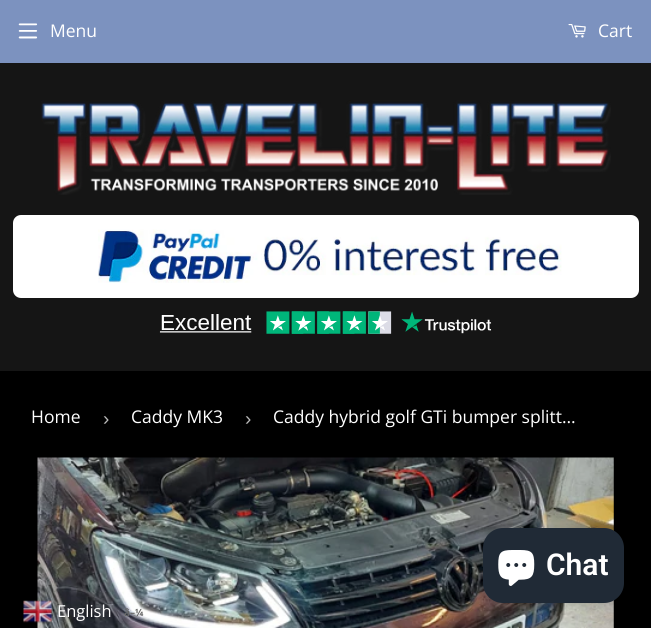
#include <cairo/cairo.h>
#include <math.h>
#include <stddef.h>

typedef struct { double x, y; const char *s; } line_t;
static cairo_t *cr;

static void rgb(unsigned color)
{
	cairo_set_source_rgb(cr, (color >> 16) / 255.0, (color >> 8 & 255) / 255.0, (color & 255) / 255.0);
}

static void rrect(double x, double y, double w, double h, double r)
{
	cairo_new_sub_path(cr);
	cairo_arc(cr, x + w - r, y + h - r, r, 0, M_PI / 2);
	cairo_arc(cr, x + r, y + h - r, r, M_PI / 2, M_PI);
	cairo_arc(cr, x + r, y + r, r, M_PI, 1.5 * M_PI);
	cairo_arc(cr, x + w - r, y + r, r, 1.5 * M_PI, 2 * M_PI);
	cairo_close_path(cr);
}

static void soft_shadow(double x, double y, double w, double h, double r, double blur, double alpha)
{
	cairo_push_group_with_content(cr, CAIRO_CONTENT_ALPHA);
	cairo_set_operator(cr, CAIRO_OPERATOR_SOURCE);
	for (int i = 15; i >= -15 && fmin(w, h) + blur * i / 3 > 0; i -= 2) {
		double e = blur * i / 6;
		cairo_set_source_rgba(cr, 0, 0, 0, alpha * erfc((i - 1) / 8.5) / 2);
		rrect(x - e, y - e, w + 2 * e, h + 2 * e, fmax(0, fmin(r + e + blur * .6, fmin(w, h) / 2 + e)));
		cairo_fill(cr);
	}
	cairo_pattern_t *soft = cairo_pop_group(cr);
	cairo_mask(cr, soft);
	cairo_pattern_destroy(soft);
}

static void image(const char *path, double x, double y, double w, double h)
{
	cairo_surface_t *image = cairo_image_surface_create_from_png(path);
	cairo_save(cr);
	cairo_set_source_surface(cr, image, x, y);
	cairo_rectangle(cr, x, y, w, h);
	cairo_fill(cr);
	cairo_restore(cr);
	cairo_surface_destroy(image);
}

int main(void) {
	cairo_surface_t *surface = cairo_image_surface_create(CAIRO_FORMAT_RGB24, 651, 628);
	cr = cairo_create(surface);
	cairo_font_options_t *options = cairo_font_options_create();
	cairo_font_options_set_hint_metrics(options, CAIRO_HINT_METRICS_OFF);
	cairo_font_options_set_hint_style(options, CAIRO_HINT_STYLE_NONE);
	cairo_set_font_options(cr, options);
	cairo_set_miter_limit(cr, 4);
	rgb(0x000000);
	cairo_paint(cr);
	rgb(0x7c92bf);
	cairo_rectangle(cr, 0, 0, 651, 63);
	cairo_fill(cr);
	image("img/1.png", 18, 23, 20, 16);
	image("img/2.png", 568, 24, 18, 14);
	rgb(0x151515);
	cairo_rectangle(cr, 0, 63, 651, 308);
	cairo_fill(cr);
	image("img/3.png", 41, 100, 570, 95);
	rgb(0xffffff);
	rrect(13, 215, 626, 83, 8);
	cairo_fill(cr);
	image("img/4.png", 98, 229, 464, 54);
	image("img/5.png", 159, 311, 333, 23);
	image("img/6.png", 37, 457, 577, 171);
	rgb(0x000000);
	soft_shadow(483, 528, 141, 75, 20, 3, 0.15);
	rgb(0x202a36);
	rrect(483, 528, 141, 75, 20);
	cairo_fill(cr);
	image("img/7.png", 498, 550, 37, 36);
	image("img/8.png", 22, 600, 31, 24);
	cairo_select_font_face(cr, "Open Sans", CAIRO_FONT_SLANT_NORMAL, CAIRO_FONT_WEIGHT_NORMAL);
	cairo_set_font_size(cr, 17.5);
	rgb(0xffffff);
	{
		static const line_t items[] = {
			{50, 37, "Menu"},
			{598, 37, "Cart"},
			{31, 423, "Home"},
		};
		for (size_t i = 0; i < sizeof items / sizeof *items; i++) {
			cairo_move_to(cr, items[i].x, items[i].y);
			cairo_show_text(cr, items[i].s);
		}
	}
	cairo_select_font_face(cr, "Liberation Sans", CAIRO_FONT_SLANT_NORMAL, CAIRO_FONT_WEIGHT_NORMAL);
	cairo_set_font_size(cr, 19);
	rgb(0xbbbbbb);
	cairo_move_to(cr, 103, 425);
	cairo_show_text(cr, "›");
	cairo_select_font_face(cr, "Open Sans", CAIRO_FONT_SLANT_NORMAL, CAIRO_FONT_WEIGHT_NORMAL);
	cairo_set_font_size(cr, 17.5);
	rgb(0xffffff);
	cairo_move_to(cr, 131, 423);
	cairo_show_text(cr, "Caddy MK3");
	cairo_select_font_face(cr, "Liberation Sans", CAIRO_FONT_SLANT_NORMAL, CAIRO_FONT_WEIGHT_NORMAL);
	cairo_set_font_size(cr, 19);
	rgb(0xbbbbbb);
	cairo_move_to(cr, 245, 425);
	cairo_show_text(cr, "›");
	cairo_select_font_face(cr, "Open Sans", CAIRO_FONT_SLANT_NORMAL, CAIRO_FONT_WEIGHT_NORMAL);
	cairo_set_font_size(cr, 17.5);
	rgb(0xffffff);
	cairo_move_to(cr, 273, 423);
	cairo_show_text(cr, "Caddy hybrid golf GTi bumper splitt…");
	cairo_select_font_face(cr, "Roboto SemiBold", CAIRO_FONT_SLANT_NORMAL, CAIRO_FONT_WEIGHT_NORMAL);
	cairo_set_font_size(cr, 30);
	cairo_move_to(cr, 546, 575);
	cairo_show_text(cr, "Chat");
	cairo_select_font_face(cr, "Open Sans", CAIRO_FONT_SLANT_NORMAL, CAIRO_FONT_WEIGHT_NORMAL);
	cairo_set_font_size(cr, 16.5);
	cairo_move_to(cr, 57, 617);
	cairo_show_text(cr, "English");
	cairo_select_font_face(cr, "Open Sans", CAIRO_FONT_SLANT_NORMAL, CAIRO_FONT_WEIGHT_BOLD);
	cairo_set_font_size(cr, 10);
	rgb(0x666666);
	cairo_move_to(cr, 124, 616);
	cairo_show_text(cr, "â–¼");
	cairo_surface_write_to_png(surface, "page.png");
	cairo_font_options_destroy(options);
	cairo_destroy(cr);
	cairo_surface_destroy(surface);
	return 0;
}
